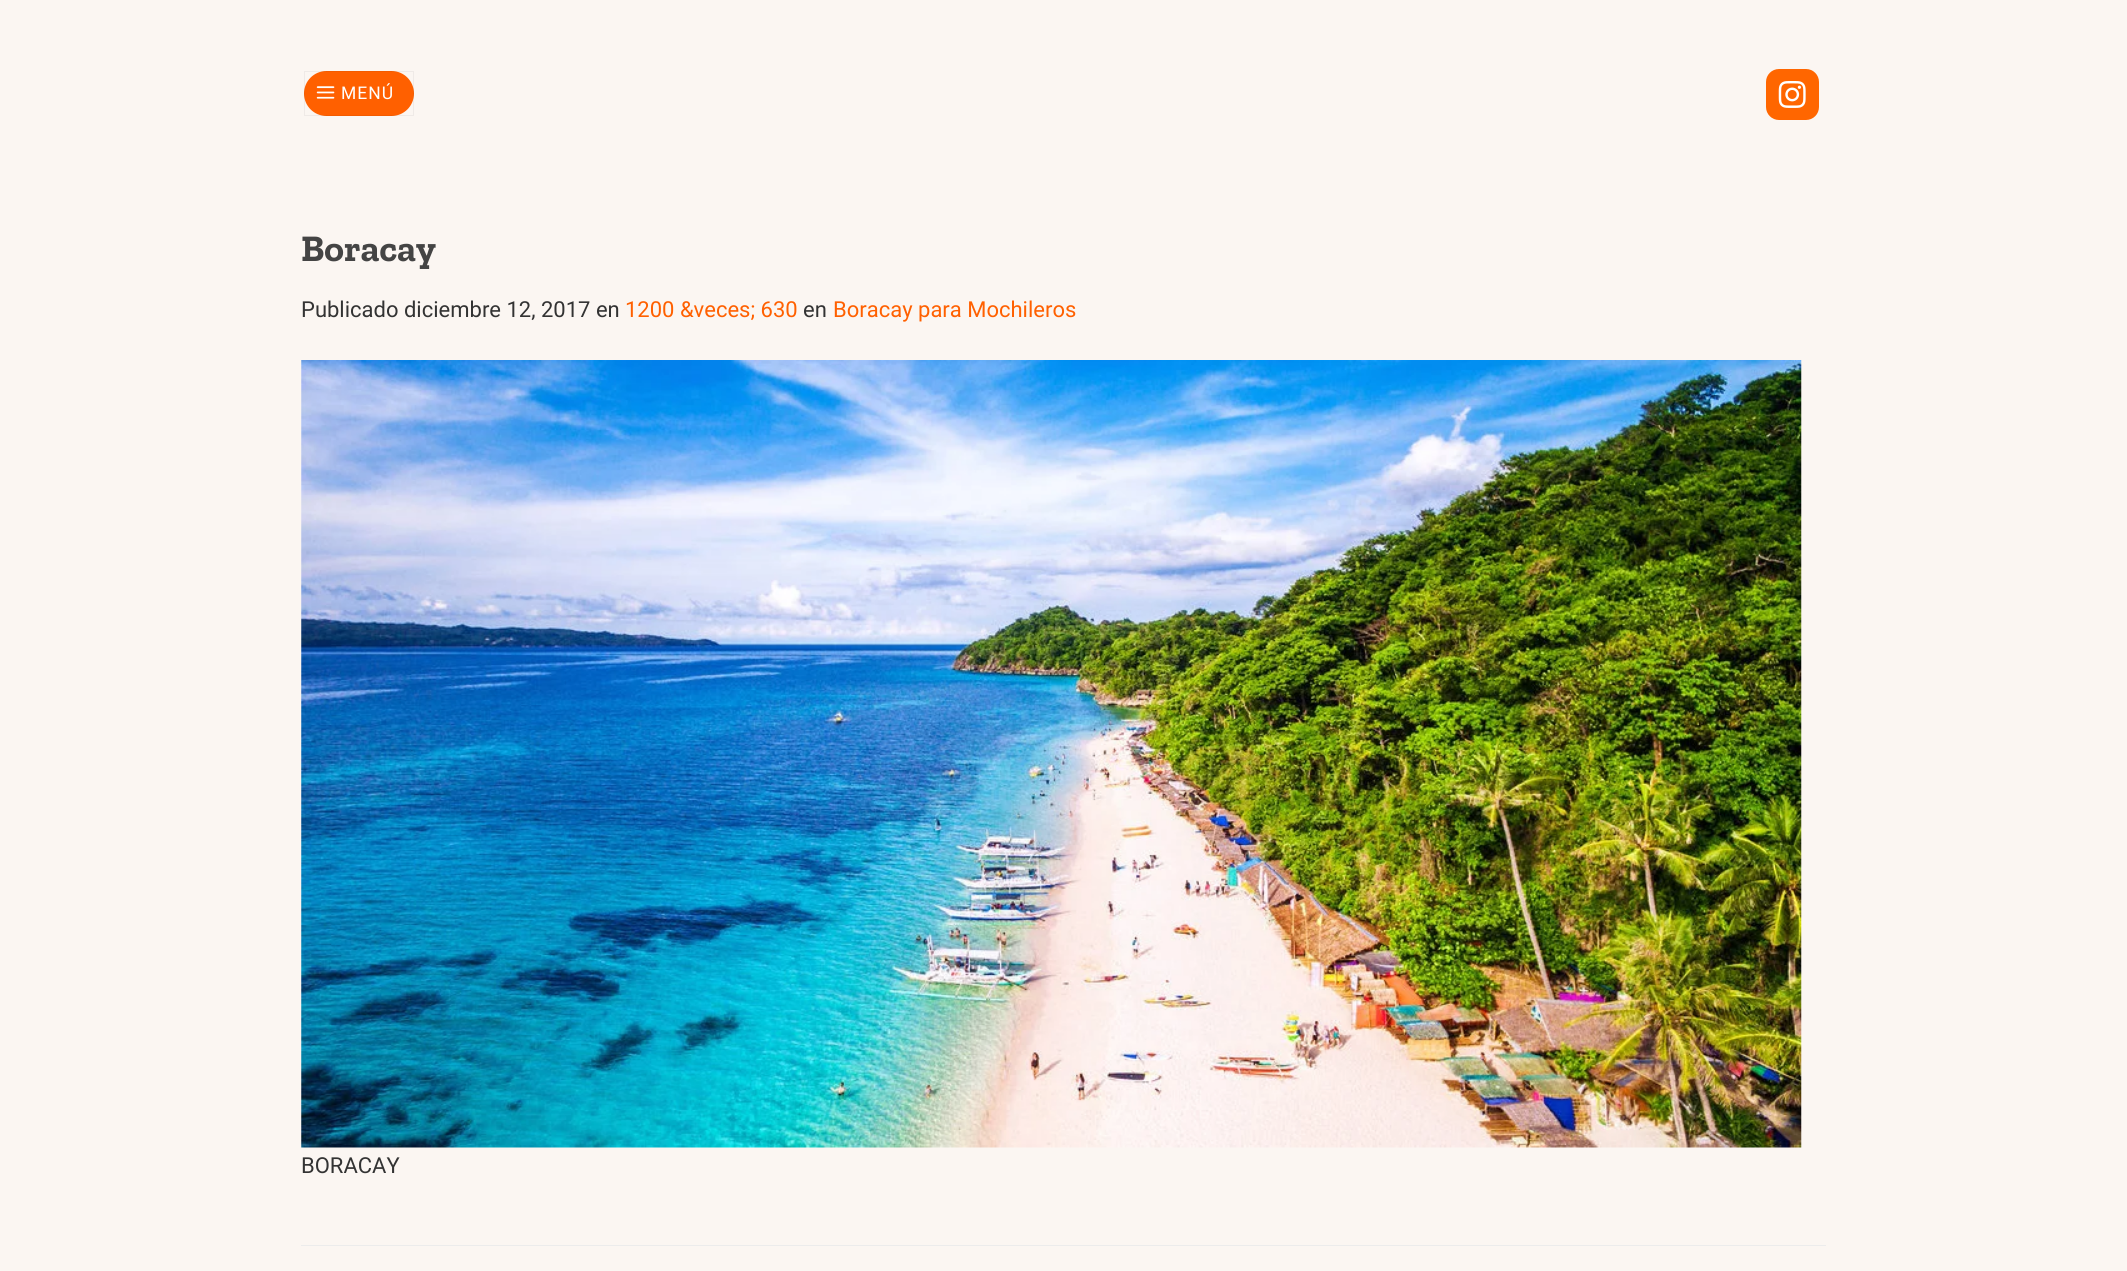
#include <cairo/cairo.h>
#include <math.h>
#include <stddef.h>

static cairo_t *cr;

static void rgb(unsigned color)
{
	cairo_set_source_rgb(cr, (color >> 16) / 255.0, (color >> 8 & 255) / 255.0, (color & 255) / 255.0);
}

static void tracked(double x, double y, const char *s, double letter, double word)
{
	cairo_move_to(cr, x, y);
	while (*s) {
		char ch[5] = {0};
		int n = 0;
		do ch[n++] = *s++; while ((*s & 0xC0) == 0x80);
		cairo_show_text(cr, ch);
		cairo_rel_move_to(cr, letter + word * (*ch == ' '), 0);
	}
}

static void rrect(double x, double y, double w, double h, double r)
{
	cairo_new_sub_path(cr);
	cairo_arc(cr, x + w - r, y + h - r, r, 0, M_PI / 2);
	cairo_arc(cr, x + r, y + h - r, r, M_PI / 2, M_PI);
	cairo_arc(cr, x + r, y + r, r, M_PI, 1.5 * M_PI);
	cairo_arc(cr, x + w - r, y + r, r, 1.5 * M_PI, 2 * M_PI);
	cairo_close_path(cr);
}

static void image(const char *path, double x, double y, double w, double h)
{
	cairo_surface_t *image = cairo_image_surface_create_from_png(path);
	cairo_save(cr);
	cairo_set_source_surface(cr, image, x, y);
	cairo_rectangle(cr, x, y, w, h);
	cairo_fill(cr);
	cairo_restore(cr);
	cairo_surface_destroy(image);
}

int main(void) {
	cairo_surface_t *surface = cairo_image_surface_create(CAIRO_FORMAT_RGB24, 2127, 1271);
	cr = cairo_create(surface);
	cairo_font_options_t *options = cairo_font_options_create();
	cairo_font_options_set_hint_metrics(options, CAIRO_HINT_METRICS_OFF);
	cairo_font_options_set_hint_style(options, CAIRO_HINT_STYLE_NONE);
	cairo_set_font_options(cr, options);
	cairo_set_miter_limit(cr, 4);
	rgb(0xfbf6f2);
	cairo_paint(cr);
	rgb(0xff6000);
	rrect(304, 71, 110, 45, 22.5);
	cairo_fill(cr);
	cairo_rectangle(cr, 304.5, 71.5, 109, 44);
	cairo_set_source_rgba(cr, 0, 0, 0, 0.05);
	cairo_set_line_width(cr, 1);
	cairo_stroke(cr);
	image("img/1.png", 316, 86, 19, 13);
	rgb(0xff6600);
	rrect(1766, 69, 53, 51, 13);
	cairo_fill(cr);
	image("img/2.png", 1778, 81, 28, 27);
	image("img/3.png", 301, 360, 1501, 788);
	rgb(0xececec);
	cairo_rectangle(cr, 301, 1245, 1525, 1);
	cairo_fill(cr);
	cairo_select_font_face(cr, "Roboto", CAIRO_FONT_SLANT_NORMAL, CAIRO_FONT_WEIGHT_NORMAL);
	cairo_set_font_size(cr, 17.5);
	rgb(0xffffff);
	tracked(341, 99, "MENÚ", 1, 0);
	cairo_select_font_face(cr, "Zilla Slab", CAIRO_FONT_SLANT_NORMAL, CAIRO_FONT_WEIGHT_BOLD);
	cairo_set_font_size(cr, 37.5);
	rgb(0x444444);
	cairo_move_to(cr, 301, 261);
	cairo_show_text(cr, "Boracay");
	cairo_select_font_face(cr, "Roboto", CAIRO_FONT_SLANT_NORMAL, CAIRO_FONT_WEIGHT_NORMAL);
	cairo_set_font_size(cr, 22);
	rgb(0x333333);
	cairo_move_to(cr, 301, 317);
	cairo_show_text(cr, "Publicado diciembre 12, 2017 en");
	rgb(0xff6000);
	cairo_move_to(cr, 625, 317);
	cairo_show_text(cr, "1200 &veces; 630");
	rgb(0x333333);
	cairo_move_to(cr, 803, 317);
	cairo_show_text(cr, "en");
	rgb(0xff6000);
	cairo_move_to(cr, 833, 317);
	cairo_show_text(cr, "Boracay para Mochileros");
	rgb(0x333333);
	cairo_move_to(cr, 301, 1173);
	cairo_show_text(cr, "BORACAY");
	cairo_surface_write_to_png(surface, "page.png");
	cairo_font_options_destroy(options);
	cairo_destroy(cr);
	cairo_surface_destroy(surface);
	return 0;
}
